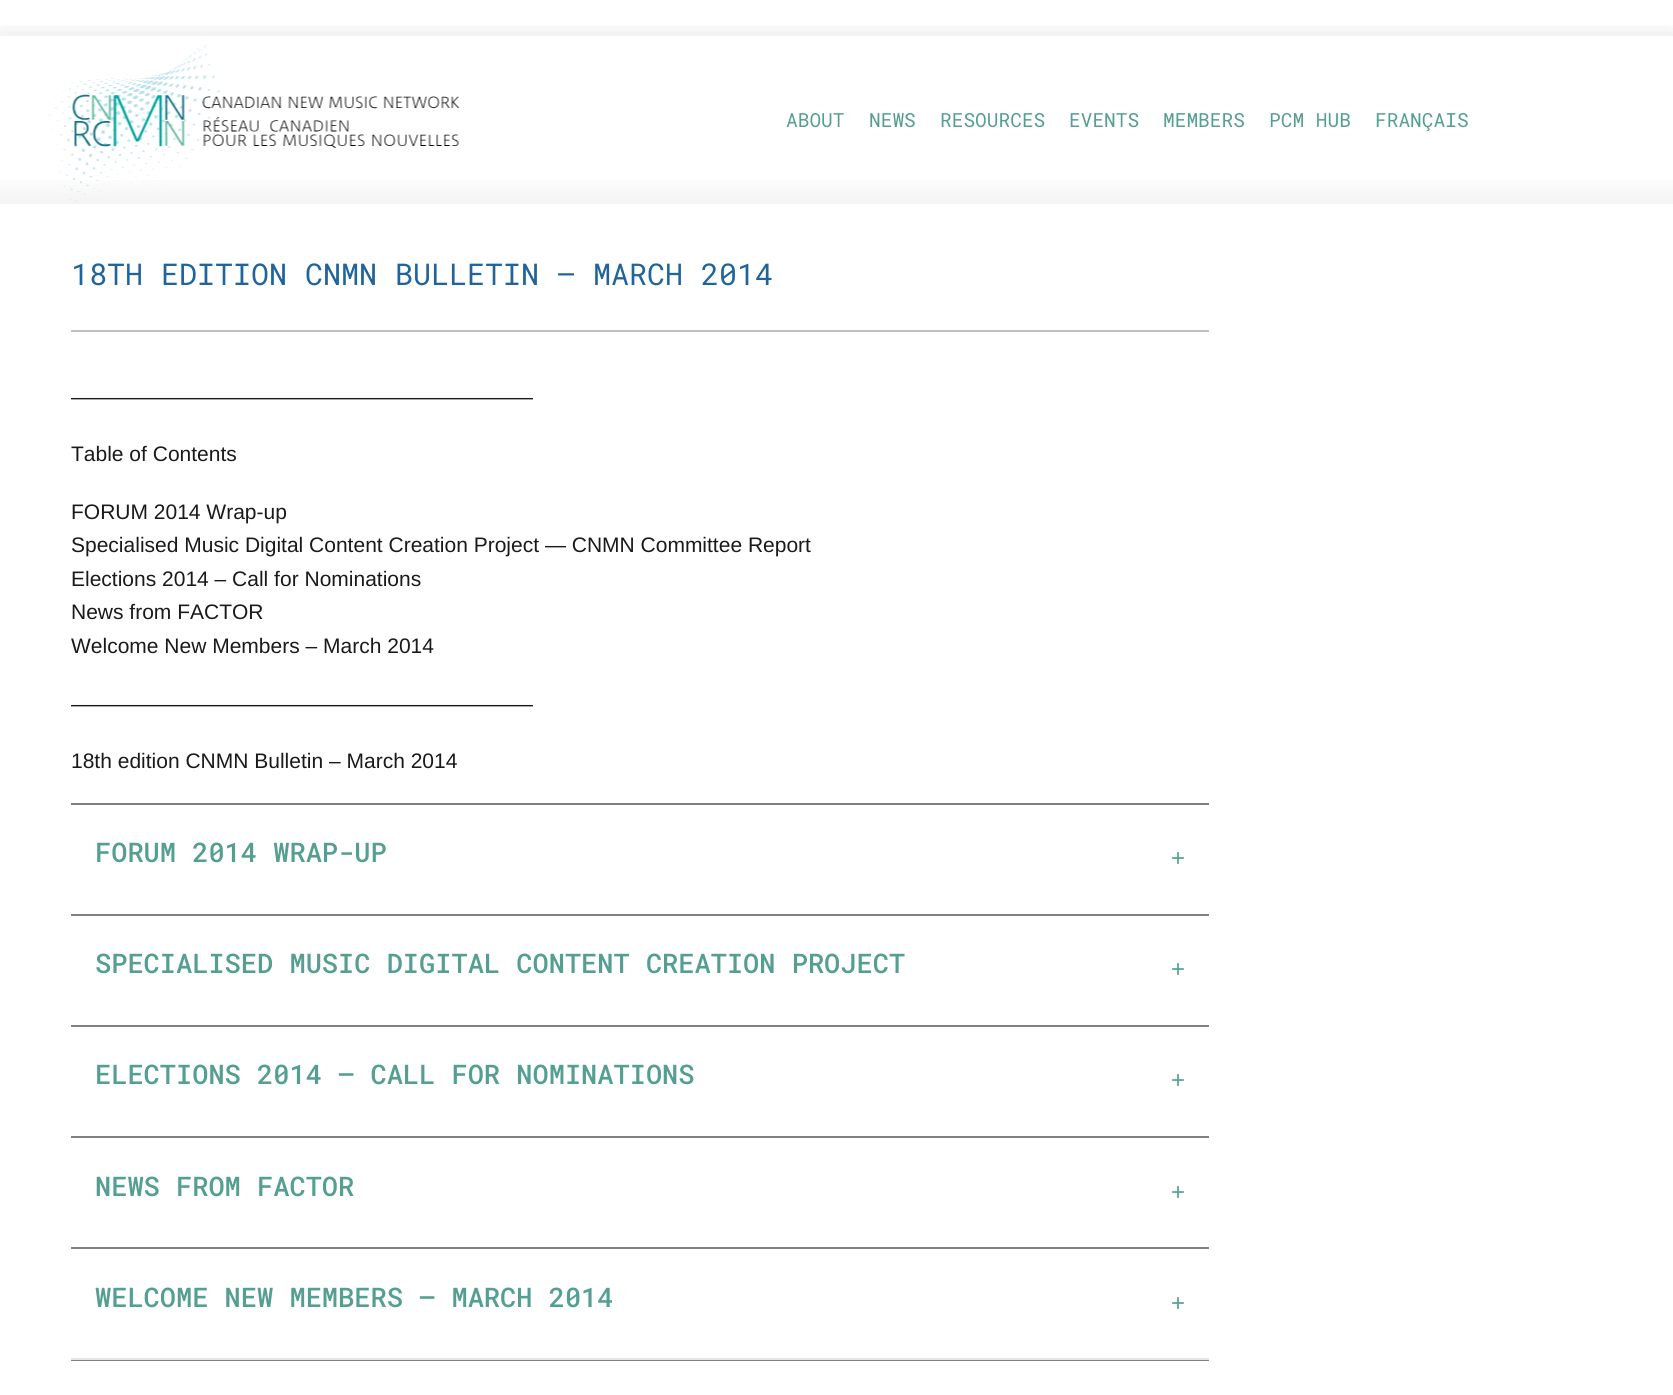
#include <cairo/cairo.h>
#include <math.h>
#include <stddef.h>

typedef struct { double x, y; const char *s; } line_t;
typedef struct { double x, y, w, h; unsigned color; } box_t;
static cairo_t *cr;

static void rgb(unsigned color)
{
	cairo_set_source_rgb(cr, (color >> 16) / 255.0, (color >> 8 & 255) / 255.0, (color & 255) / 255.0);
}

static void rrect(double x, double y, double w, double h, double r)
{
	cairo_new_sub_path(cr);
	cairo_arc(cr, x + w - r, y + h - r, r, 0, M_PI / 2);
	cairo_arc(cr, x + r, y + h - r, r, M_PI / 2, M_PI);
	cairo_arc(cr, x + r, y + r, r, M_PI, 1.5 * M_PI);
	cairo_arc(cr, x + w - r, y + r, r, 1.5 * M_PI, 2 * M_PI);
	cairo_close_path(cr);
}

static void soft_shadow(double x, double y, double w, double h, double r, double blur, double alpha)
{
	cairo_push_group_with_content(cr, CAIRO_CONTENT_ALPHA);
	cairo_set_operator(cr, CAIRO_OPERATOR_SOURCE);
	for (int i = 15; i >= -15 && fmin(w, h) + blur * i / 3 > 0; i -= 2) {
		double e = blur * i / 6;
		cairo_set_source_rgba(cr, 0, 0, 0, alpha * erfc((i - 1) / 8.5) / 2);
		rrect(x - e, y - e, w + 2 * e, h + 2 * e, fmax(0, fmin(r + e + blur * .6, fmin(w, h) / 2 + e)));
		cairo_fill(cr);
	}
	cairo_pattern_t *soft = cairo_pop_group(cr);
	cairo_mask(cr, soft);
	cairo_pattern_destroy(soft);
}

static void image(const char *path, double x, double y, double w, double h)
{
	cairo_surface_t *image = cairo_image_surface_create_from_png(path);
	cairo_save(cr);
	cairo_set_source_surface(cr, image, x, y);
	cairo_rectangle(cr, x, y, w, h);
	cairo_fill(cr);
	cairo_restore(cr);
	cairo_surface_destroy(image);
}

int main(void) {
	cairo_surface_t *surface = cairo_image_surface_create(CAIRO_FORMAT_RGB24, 1673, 1395);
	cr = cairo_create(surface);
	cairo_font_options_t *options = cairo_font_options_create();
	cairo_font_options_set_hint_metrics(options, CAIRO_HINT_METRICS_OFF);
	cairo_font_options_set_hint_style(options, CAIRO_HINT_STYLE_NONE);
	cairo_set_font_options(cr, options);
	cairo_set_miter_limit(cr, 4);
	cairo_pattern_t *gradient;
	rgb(0xffffff);
	cairo_paint(cr);
	cairo_save(cr);
	cairo_rectangle(cr, 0, 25, 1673, 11);
	cairo_clip(cr);
	rgb(0x000000);
	soft_shadow(0, 44, 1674, 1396, 0, 15, 0.2);
	cairo_restore(cr);
	gradient = cairo_pattern_create_linear(837, 36, 837, 204);
	cairo_pattern_add_color_stop_rgba(gradient, 0.82, 1, 1, 1, 1);
	cairo_pattern_add_color_stop_rgba(gradient, 1, 0.953, 0.953, 0.953, 1);
	cairo_set_source(cr, gradient);
	cairo_pattern_destroy(gradient);
	cairo_rectangle(cr, 0, 180, 1673, 24);
	cairo_fill(cr);
	image("img/1.png", 40, 39, 420, 164);
	{
		static const box_t items[] = {
			{71, 330, 1138, 2, 0xbfbfbf},
			{71, 803, 1138, 2, 0x808080},
			{71, 914, 1138, 2, 0x808080},
			{71, 1025, 1138, 2, 0x808080},
			{71, 1136, 1138, 2, 0x808080},
			{71, 1247, 1138, 2, 0x808080},
			{71, 1360, 1138, 1, 0x808080},
			{71, 1358, 1138, 2, 0xe6e6e6},
		};
		for (size_t i = 0; i < sizeof items / sizeof *items; i++) {
			rgb(items[i].color);
			cairo_rectangle(cr, items[i].x, items[i].y, items[i].w, items[i].h);
			cairo_fill(cr);
		}
	}
	cairo_select_font_face(cr, "Roboto Mono", CAIRO_FONT_SLANT_NORMAL, CAIRO_FONT_WEIGHT_NORMAL);
	cairo_set_font_size(cr, 19.5);
	rgb(0x559f92);
	{
		static const line_t items[] = {
			{786, 127, "ABOUT"},
			{869, 127, "NEWS"},
			{940, 127, "RESOURCES"},
			{1069, 127, "EVENTS"},
			{1163, 127, "MEMBERS"},
			{1269, 127, "PCM HUB"},
			{1375, 127, "FRANÇAIS"},
		};
		for (size_t i = 0; i < sizeof items / sizeof *items; i++) {
			cairo_move_to(cr, items[i].x, items[i].y);
			cairo_show_text(cr, items[i].s);
		}
	}
	cairo_set_font_size(cr, 30);
	rgb(0x20649b);
	cairo_move_to(cr, 71, 285);
	cairo_show_text(cr, "18TH EDITION CNMN BULLETIN – MARCH 2014");
	cairo_select_font_face(cr, "Liberation Sans", CAIRO_FONT_SLANT_NORMAL, CAIRO_FONT_WEIGHT_NORMAL);
	cairo_set_font_size(cr, 21);
	rgb(0x1a1a1a);
	{
		static const line_t items[] = {
			{71, 404, "——————————————————————"},
			{71, 461, "Table of Contents"},
			{71, 519, "FORUM 2014 Wrap-up"},
			{71, 552, "Specialised Music Digital Content Creation Project — CNMN Committee Report"},
			{71, 586, "Elections 2014 – Call for Nominations"},
			{71, 619, "News from FACTOR"},
			{71, 653, "Welcome New Members – March 2014"},
			{71, 711, "——————————————————————"},
			{71, 768, "18th edition CNMN Bulletin – March 2014"},
		};
		for (size_t i = 0; i < sizeof items / sizeof *items; i++) {
			cairo_move_to(cr, items[i].x, items[i].y);
			cairo_show_text(cr, items[i].s);
		}
	}
	cairo_select_font_face(cr, "Roboto Mono Medium", CAIRO_FONT_SLANT_NORMAL, CAIRO_FONT_WEIGHT_NORMAL);
	cairo_set_font_size(cr, 27);
	rgb(0x559f92);
	cairo_move_to(cr, 95, 862);
	cairo_show_text(cr, "FORUM 2014 WRAP-UP");
	cairo_select_font_face(cr, "Liberation Sans", CAIRO_FONT_SLANT_NORMAL, CAIRO_FONT_WEIGHT_NORMAL);
	cairo_set_font_size(cr, 24);
	cairo_move_to(cr, 1171, 866);
	cairo_show_text(cr, "+");
	cairo_select_font_face(cr, "Roboto Mono Medium", CAIRO_FONT_SLANT_NORMAL, CAIRO_FONT_WEIGHT_NORMAL);
	cairo_set_font_size(cr, 27);
	cairo_move_to(cr, 95, 973);
	cairo_show_text(cr, "SPECIALISED MUSIC DIGITAL CONTENT CREATION PROJECT");
	cairo_select_font_face(cr, "Liberation Sans", CAIRO_FONT_SLANT_NORMAL, CAIRO_FONT_WEIGHT_NORMAL);
	cairo_set_font_size(cr, 24);
	cairo_move_to(cr, 1171, 977);
	cairo_show_text(cr, "+");
	cairo_select_font_face(cr, "Roboto Mono Medium", CAIRO_FONT_SLANT_NORMAL, CAIRO_FONT_WEIGHT_NORMAL);
	cairo_set_font_size(cr, 27);
	cairo_move_to(cr, 95, 1084);
	cairo_show_text(cr, "ELECTIONS 2014 – CALL FOR NOMINATIONS");
	cairo_select_font_face(cr, "Liberation Sans", CAIRO_FONT_SLANT_NORMAL, CAIRO_FONT_WEIGHT_NORMAL);
	cairo_set_font_size(cr, 24);
	cairo_move_to(cr, 1171, 1088);
	cairo_show_text(cr, "+");
	cairo_select_font_face(cr, "Roboto Mono Medium", CAIRO_FONT_SLANT_NORMAL, CAIRO_FONT_WEIGHT_NORMAL);
	cairo_set_font_size(cr, 27);
	cairo_move_to(cr, 95, 1196);
	cairo_show_text(cr, "NEWS FROM FACTOR");
	cairo_select_font_face(cr, "Liberation Sans", CAIRO_FONT_SLANT_NORMAL, CAIRO_FONT_WEIGHT_NORMAL);
	cairo_set_font_size(cr, 24);
	cairo_move_to(cr, 1171, 1200);
	cairo_show_text(cr, "+");
	cairo_select_font_face(cr, "Roboto Mono Medium", CAIRO_FONT_SLANT_NORMAL, CAIRO_FONT_WEIGHT_NORMAL);
	cairo_set_font_size(cr, 27);
	cairo_move_to(cr, 95, 1307);
	cairo_show_text(cr, "WELCOME NEW MEMBERS – MARCH 2014");
	cairo_select_font_face(cr, "Liberation Sans", CAIRO_FONT_SLANT_NORMAL, CAIRO_FONT_WEIGHT_NORMAL);
	cairo_set_font_size(cr, 24);
	cairo_move_to(cr, 1171, 1311);
	cairo_show_text(cr, "+");
	cairo_surface_write_to_png(surface, "page.png");
	cairo_font_options_destroy(options);
	cairo_destroy(cr);
	cairo_surface_destroy(surface);
	return 0;
}
